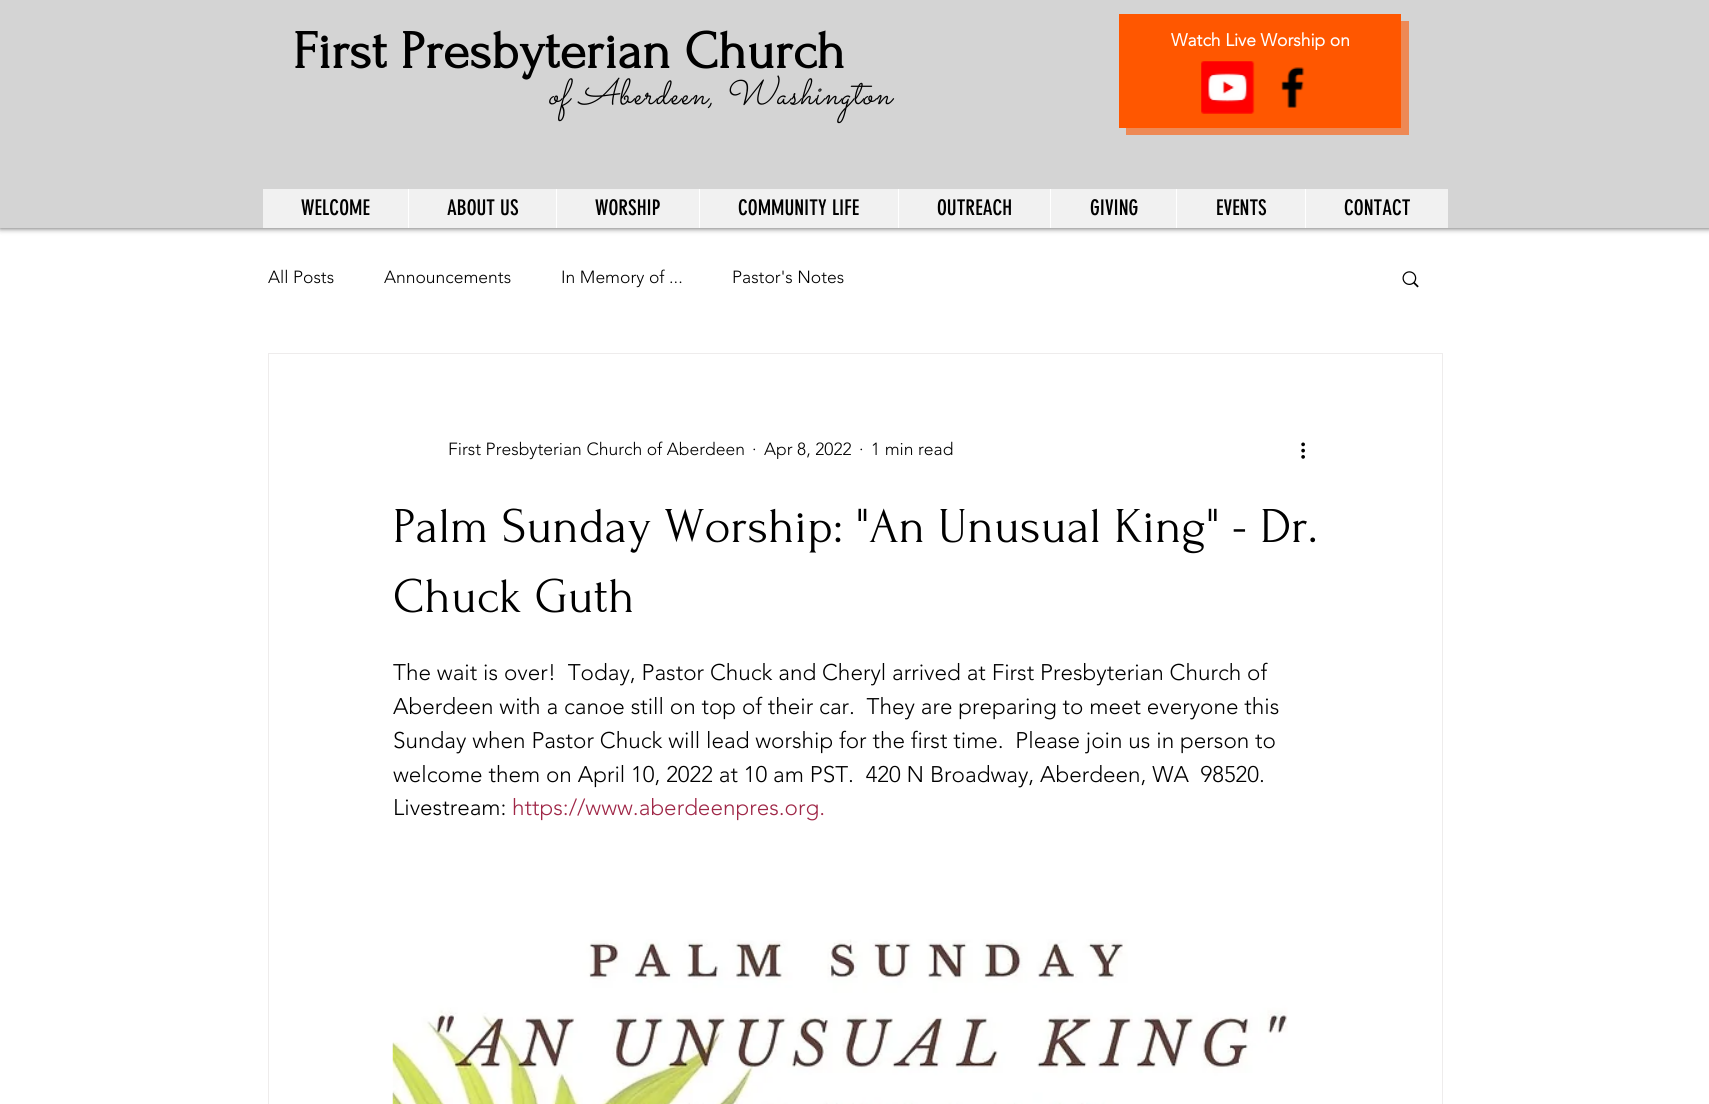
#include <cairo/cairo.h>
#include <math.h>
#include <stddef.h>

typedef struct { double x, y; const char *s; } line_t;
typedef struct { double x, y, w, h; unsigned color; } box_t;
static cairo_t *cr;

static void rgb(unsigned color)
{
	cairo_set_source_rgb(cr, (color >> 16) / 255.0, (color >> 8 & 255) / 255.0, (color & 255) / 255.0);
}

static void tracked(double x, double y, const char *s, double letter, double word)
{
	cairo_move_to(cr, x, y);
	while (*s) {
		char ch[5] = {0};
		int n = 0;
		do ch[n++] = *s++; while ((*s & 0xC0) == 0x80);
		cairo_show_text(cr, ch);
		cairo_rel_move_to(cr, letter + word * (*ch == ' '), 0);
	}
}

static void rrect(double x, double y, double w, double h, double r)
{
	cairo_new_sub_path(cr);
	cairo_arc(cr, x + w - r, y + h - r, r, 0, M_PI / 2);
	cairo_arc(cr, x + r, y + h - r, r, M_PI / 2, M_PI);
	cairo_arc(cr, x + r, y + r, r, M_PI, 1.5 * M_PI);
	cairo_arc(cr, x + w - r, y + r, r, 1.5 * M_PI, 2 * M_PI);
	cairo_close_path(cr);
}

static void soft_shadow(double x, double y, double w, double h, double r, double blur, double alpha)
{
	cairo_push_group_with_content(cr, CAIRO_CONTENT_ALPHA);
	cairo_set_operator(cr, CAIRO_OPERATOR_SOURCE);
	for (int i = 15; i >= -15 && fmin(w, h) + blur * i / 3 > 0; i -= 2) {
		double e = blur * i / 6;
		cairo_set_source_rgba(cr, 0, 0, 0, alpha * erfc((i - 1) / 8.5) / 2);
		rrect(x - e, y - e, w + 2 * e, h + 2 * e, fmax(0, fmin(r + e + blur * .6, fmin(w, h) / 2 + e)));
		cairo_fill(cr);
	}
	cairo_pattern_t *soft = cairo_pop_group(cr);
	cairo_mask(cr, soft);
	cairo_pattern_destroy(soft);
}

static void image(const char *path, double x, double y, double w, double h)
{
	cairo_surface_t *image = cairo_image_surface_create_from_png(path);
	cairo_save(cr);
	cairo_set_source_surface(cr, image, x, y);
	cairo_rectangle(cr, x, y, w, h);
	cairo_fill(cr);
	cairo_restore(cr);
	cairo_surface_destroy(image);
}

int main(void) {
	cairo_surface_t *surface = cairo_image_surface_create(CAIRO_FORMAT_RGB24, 1709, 1104);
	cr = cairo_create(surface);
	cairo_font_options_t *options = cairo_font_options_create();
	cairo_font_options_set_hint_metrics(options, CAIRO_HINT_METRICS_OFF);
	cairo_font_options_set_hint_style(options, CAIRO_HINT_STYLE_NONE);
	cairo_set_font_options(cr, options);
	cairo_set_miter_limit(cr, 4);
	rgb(0xffffff);
	cairo_paint(cr);
	rgb(0x000000);
	soft_shadow(0, 0, 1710, 228, 0, 3, 0.7);
	rgb(0xd4d4d4);
	cairo_rectangle(cr, 0, 0, 1709, 228);
	cairo_fill(cr);
	rgb(0xee8955);
	cairo_new_path(cr);
	cairo_move_to(cr, 1126, 128);
	cairo_line_to(cr, 1126, 135);
	cairo_line_to(cr, 1409, 135);
	cairo_line_to(cr, 1409, 21);
	cairo_line_to(cr, 1401, 21);
	cairo_line_to(cr, 1401, 128);
	cairo_close_path(cr);
	cairo_fill(cr);
	rgb(0xff5700);
	cairo_rectangle(cr, 1119, 14, 282, 114);
	cairo_fill(cr);
	image("img/1.png", 1201, 61, 54, 53);
	image("img/2.png", 1281, 67, 24, 41);
	{
		static const box_t items[] = {
			{263, 189, 1185, 39, 0xf1f1f1},
			{408, 189, 1, 39, 0xffffff},
			{556, 189, 1, 39, 0xffffff},
			{699, 189, 1, 39, 0xffffff},
			{898, 189, 1, 39, 0xffffff},
			{1050, 189, 1, 39, 0xffffff},
			{1176, 189, 1, 39, 0xffffff},
			{1305, 189, 1, 39, 0xffffff},
		};
		for (size_t i = 0; i < sizeof items / sizeof *items; i++) {
			rgb(items[i].color);
			cairo_rectangle(cr, items[i].x, items[i].y, items[i].w, items[i].h);
			cairo_fill(cr);
		}
	}
	image("img/3.png", 1402, 271, 17, 17);
	cairo_rectangle(cr, 268.5, 353.5, 1174, 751);
	rgb(0xeeecec);
	cairo_set_line_width(cr, 1);
	cairo_stroke(cr);
	image("img/4.png", 1301, 442, 4, 17);
	image("img/5.png", 392, 939, 896, 165);
	cairo_select_font_face(cr, "Forum", CAIRO_FONT_SLANT_NORMAL, CAIRO_FONT_WEIGHT_BOLD);
	cairo_set_font_size(cr, 53.75);
	rgb(0x000000);
	cairo_move_to(cr, 293, 68);
	cairo_show_text(cr, "First Presbyterian Church");
	cairo_select_font_face(cr, "Sacramento", CAIRO_FONT_SLANT_ITALIC, CAIRO_FONT_WEIGHT_NORMAL);
	cairo_set_font_size(cr, 36.25);
	tracked(548, 104, "of Aberdeen, Washington", 1.1, 0);
	cairo_select_font_face(cr, "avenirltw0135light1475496", CAIRO_FONT_SLANT_NORMAL, CAIRO_FONT_WEIGHT_BOLD);
	cairo_set_font_size(cr, 17.5);
	rgb(0xffffff);
	cairo_move_to(cr, 1171, 46);
	cairo_show_text(cr, "Watch Live Worship on");
	cairo_select_font_face(cr, "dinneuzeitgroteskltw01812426", CAIRO_FONT_SLANT_NORMAL, CAIRO_FONT_WEIGHT_NORMAL);
	cairo_set_font_size(cr, 21.25);
	rgb(0x000000);
	{
		static const line_t items[] = {
			{301, 215, "WELCOME"},
			{447, 215, "ABOUT US"},
			{595, 215, "WORSHIP"},
			{738, 215, "COMMUNITY LIFE"},
			{937, 215, "OUTREACH"},
			{1090, 215, "GIVING"},
			{1216, 215, "EVENTS"},
			{1344, 215, "CONTACT"},
		};
		for (size_t i = 0; i < sizeof items / sizeof *items; i++) {
			cairo_move_to(cr, items[i].x, items[i].y);
			cairo_show_text(cr, items[i].s);
		}
	}
	cairo_select_font_face(cr, "avenirltw0135light1475496 Light", CAIRO_FONT_SLANT_NORMAL, CAIRO_FONT_WEIGHT_NORMAL);
	cairo_set_font_size(cr, 17.5);
	{
		static const line_t items[] = {
			{268, 283, "All Posts"},
			{384, 283, "Announcements"},
			{561, 283, "In Memory of ..."},
			{732, 283, "Pastor's Notes"},
			{448, 455, "First Presbyterian Church of Aberdeen"},
			{752, 455, "·"},
			{764, 455, "Apr 8, 2022"},
			{859, 455, "·"},
			{871, 455, "1 min read"},
		};
		for (size_t i = 0; i < sizeof items / sizeof *items; i++) {
			cairo_move_to(cr, items[i].x, items[i].y);
			cairo_show_text(cr, items[i].s);
		}
	}
	cairo_select_font_face(cr, "Forum", CAIRO_FONT_SLANT_NORMAL, CAIRO_FONT_WEIGHT_NORMAL);
	cairo_set_font_size(cr, 50);
	cairo_move_to(cr, 393, 542);
	cairo_show_text(cr, "Palm Sunday Worship: \"An Unusual King\" - Dr.");
	cairo_move_to(cr, 393, 612);
	cairo_show_text(cr, "Chuck Guth");
	cairo_select_font_face(cr, "avenirltw0135light1475496 Light", CAIRO_FONT_SLANT_NORMAL, CAIRO_FONT_WEIGHT_NORMAL);
	cairo_set_font_size(cr, 22.5);
	{
		static const line_t items[] = {
			{393, 680, "The wait is over!  Today, Pastor Chuck and Cheryl arrived at First Presbyterian Church of"},
			{393, 714, "Aberdeen with a canoe still on top of their car.  They are preparing to meet everyone this"},
			{393, 748, "Sunday when Pastor Chuck will lead worship for the first time.  Please join us in person to"},
			{393, 782, "welcome them on April 10, 2022 at 10 am PST.  420 N Broadway, Aberdeen, WA  98520."},
			{393, 815, "Livestream:"},
		};
		for (size_t i = 0; i < sizeof items / sizeof *items; i++) {
			cairo_move_to(cr, items[i].x, items[i].y);
			cairo_show_text(cr, items[i].s);
		}
	}
	rgb(0x9f2747);
	cairo_move_to(cr, 512, 815);
	cairo_show_text(cr, "https://www.aberdeenpres.org.");
	cairo_surface_write_to_png(surface, "page.png");
	cairo_font_options_destroy(options);
	cairo_destroy(cr);
	cairo_surface_destroy(surface);
	return 0;
}
